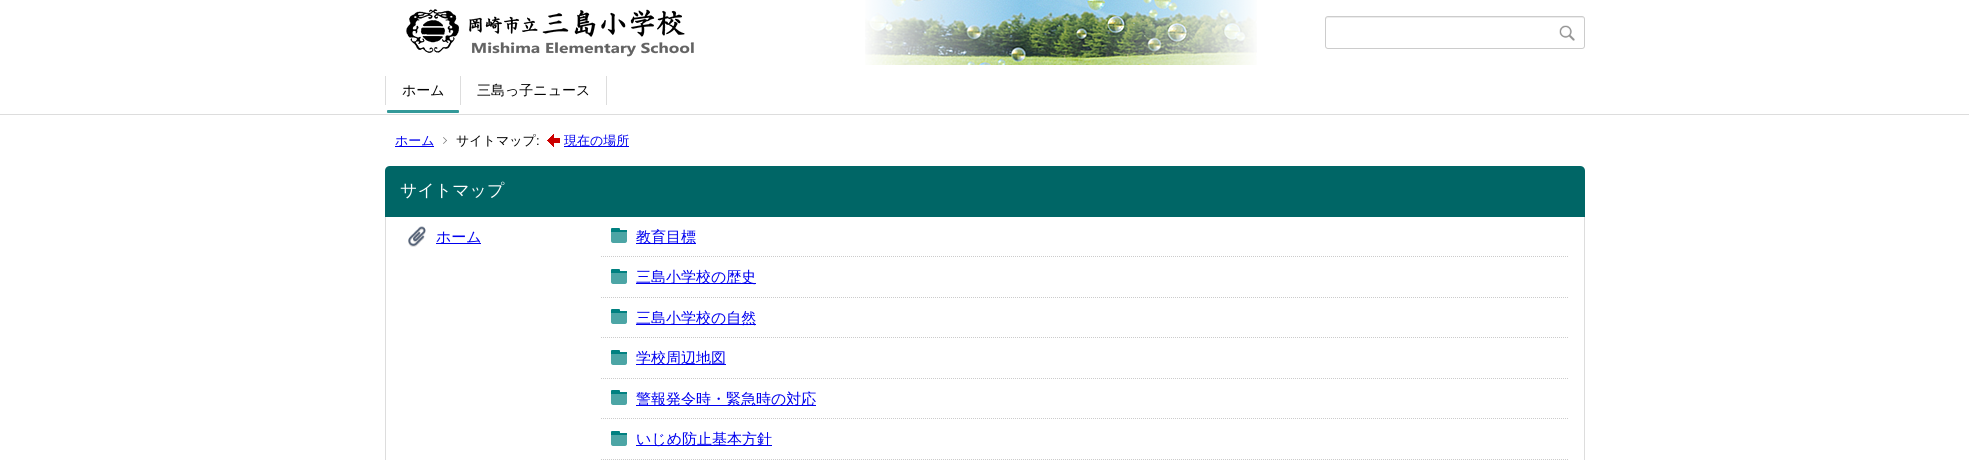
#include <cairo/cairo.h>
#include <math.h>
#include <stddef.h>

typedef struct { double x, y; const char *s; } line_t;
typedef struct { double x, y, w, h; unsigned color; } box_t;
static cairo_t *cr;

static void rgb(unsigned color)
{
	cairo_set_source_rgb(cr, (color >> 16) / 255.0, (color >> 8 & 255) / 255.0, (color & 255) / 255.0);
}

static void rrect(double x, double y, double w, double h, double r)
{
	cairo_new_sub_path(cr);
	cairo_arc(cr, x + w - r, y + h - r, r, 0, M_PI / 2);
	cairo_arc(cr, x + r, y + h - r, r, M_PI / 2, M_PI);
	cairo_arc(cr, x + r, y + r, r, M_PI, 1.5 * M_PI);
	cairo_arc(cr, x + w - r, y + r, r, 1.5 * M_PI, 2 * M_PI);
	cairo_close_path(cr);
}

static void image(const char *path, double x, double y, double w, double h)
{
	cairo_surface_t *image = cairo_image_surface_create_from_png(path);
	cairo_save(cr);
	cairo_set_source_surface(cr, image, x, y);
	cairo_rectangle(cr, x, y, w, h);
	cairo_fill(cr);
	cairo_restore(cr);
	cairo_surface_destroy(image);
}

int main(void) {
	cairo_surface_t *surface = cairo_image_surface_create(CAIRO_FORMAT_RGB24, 1969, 460);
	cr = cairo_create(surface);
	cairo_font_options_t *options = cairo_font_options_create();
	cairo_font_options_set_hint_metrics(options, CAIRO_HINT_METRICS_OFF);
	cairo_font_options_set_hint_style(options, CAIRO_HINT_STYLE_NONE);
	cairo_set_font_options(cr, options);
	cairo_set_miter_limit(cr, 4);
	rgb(0xffffff);
	cairo_paint(cr);
	image("img/1.png", 865, 0, 392, 65);
	image("img/2.png", 406, 9, 288, 48);
	rgb(0xececec);
	cairo_new_path(cr);
	cairo_move_to(cr, 1328, 18);
	cairo_line_to(cr, 1582, 18);
	cairo_curve_to(cr, 1583, 18, 1584, 19, 1584, 20);
	cairo_line_to(cr, 1583, 17);
	cairo_line_to(cr, 1328, 17);
	cairo_curve_to(cr, 1326, 17, 1326, 19, 1326, 20);
	cairo_curve_to(cr, 1326, 19, 1327, 18, 1328, 18);
	cairo_close_path(cr);
	cairo_fill(cr);
	rrect(1325.5, 16.5, 259, 32, 2.5);
	rgb(0xcccccc);
	cairo_set_line_width(cr, 1);
	cairo_stroke(cr);
	image("img/3.png", 1559, 25, 16, 16);
	rgb(0xdddddd);
	cairo_rectangle(cr, 0, 114, 1969, 1);
	cairo_fill(cr);
	cairo_rectangle(cr, 385, 76, 1, 29);
	cairo_fill(cr);
	rgb(0x339999);
	rrect(387, 110, 72, 3, 1);
	cairo_fill(cr);
	{
		static const box_t items[] = {
			{460, 76, 1, 29, 0xdddddd},
			{606, 76, 1, 29, 0xdddddd},
			{395, 146, 39, 1, 0x0000ee},
		};
		for (size_t i = 0; i < sizeof items / sizeof *items; i++) {
			rgb(items[i].color);
			cairo_rectangle(cr, items[i].x, items[i].y, items[i].w, items[i].h);
			cairo_fill(cr);
		}
	}
	rgb(0x777777);
	cairo_new_path(cr);
	cairo_move_to(cr, 443.5, 137);
	cairo_line_to(cr, 447, 140.5);
	cairo_line_to(cr, 446.5, 141);
	cairo_line_to(cr, 443, 137.5);
	cairo_close_path(cr);
	cairo_fill(cr);
	cairo_new_path(cr);
	cairo_move_to(cr, 446.5, 140);
	cairo_line_to(cr, 447, 140.5);
	cairo_line_to(cr, 443.5, 144);
	cairo_line_to(cr, 443, 143.5);
	cairo_close_path(cr);
	cairo_fill(cr);
	image("img/4.png", 547, 134, 13, 13);
	rgb(0x0000ee);
	cairo_rectangle(cr, 564, 146, 65, 1);
	cairo_fill(cr);
	rgb(0x006666);
	cairo_new_path(cr);
	cairo_move_to(cr, 390, 166);
	cairo_line_to(cr, 1580, 166);
	cairo_curve_to(cr, 1583, 166, 1585, 168, 1585, 171);
	cairo_line_to(cr, 1585, 217);
	cairo_line_to(cr, 385, 217);
	cairo_line_to(cr, 385, 171);
	cairo_curve_to(cr, 385, 168, 387, 166, 390, 166);
	cairo_close_path(cr);
	cairo_fill(cr);
	rgb(0xdddddd);
	cairo_set_fill_rule(cr, CAIRO_FILL_RULE_EVEN_ODD);
	cairo_new_path(cr);
	cairo_move_to(cr, 385, 217);
	cairo_line_to(cr, 1585, 217);
	cairo_line_to(cr, 1585, 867);
	cairo_curve_to(cr, 1585, 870, 1583, 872, 1580, 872);
	cairo_line_to(cr, 390, 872);
	cairo_curve_to(cr, 387, 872, 385, 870, 385, 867);
	cairo_close_path(cr);
	cairo_move_to(cr, 386, 217);
	cairo_line_to(cr, 1584, 217);
	cairo_line_to(cr, 1584, 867);
	cairo_curve_to(cr, 1584, 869, 1582, 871, 1580, 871);
	cairo_line_to(cr, 390, 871);
	cairo_curve_to(cr, 388, 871, 386, 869, 386, 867);
	cairo_close_path(cr);
	cairo_fill(cr);
	image("img/5.png", 408, 226, 18, 21);
	rgb(0x0000ee);
	cairo_rectangle(cr, 436, 243, 45, 1);
	cairo_fill(cr);
	rgb(0x008080);
	cairo_new_path(cr);
	cairo_move_to(cr, 612, 228);
	cairo_line_to(cr, 619, 228);
	cairo_curve_to(cr, 619.5, 228, 620, 228.5, 620, 229);
	cairo_line_to(cr, 620, 231);
	cairo_line_to(cr, 611, 231);
	cairo_line_to(cr, 611, 229);
	cairo_curve_to(cr, 611, 228.5, 611.5, 228, 612, 228);
	cairo_close_path(cr);
	cairo_fill(cr);
	rgb(0x0000ee);
	cairo_rectangle(cr, 636, 243, 60, 1);
	cairo_fill(cr);
	cairo_set_source_rgba(cr, 0, 0.502, 0.502, 0.7);
	cairo_new_path(cr);
	cairo_move_to(cr, 611, 230);
	cairo_line_to(cr, 626, 230);
	cairo_curve_to(cr, 626.5, 230, 627, 230.5, 627, 231);
	cairo_line_to(cr, 627, 241);
	cairo_curve_to(cr, 627, 242, 626, 243, 625, 243);
	cairo_line_to(cr, 613, 243);
	cairo_curve_to(cr, 612, 243, 611, 242, 611, 241);
	cairo_close_path(cr);
	cairo_fill(cr);
	rgb(0x008080);
	cairo_rectangle(cr, 611, 230, 16, 2);
	cairo_fill(cr);
	cairo_new_path(cr);
	cairo_move_to(cr, 601, 256.5);
	cairo_line_to(cr, 1569, 256.5);
	rgb(0xcccccc);
	cairo_set_dash(cr, (double[]){1, 1}, 2, 0);
	cairo_stroke(cr);
	rgb(0x008080);
	cairo_new_path(cr);
	cairo_move_to(cr, 612, 269);
	cairo_line_to(cr, 619, 269);
	cairo_curve_to(cr, 619.5, 269, 620, 269.5, 620, 270);
	cairo_line_to(cr, 620, 272);
	cairo_line_to(cr, 611, 272);
	cairo_line_to(cr, 611, 270);
	cairo_curve_to(cr, 611, 269.5, 611.5, 269, 612, 269);
	cairo_close_path(cr);
	cairo_fill(cr);
	rgb(0x0000ee);
	cairo_rectangle(cr, 636, 283, 120, 1);
	cairo_fill(cr);
	cairo_set_source_rgba(cr, 0, 0.502, 0.502, 0.7);
	cairo_new_path(cr);
	cairo_move_to(cr, 611, 271);
	cairo_line_to(cr, 626, 271);
	cairo_curve_to(cr, 626.5, 271, 627, 271.5, 627, 272);
	cairo_line_to(cr, 627, 282);
	cairo_curve_to(cr, 627, 283, 626, 284, 625, 284);
	cairo_line_to(cr, 613, 284);
	cairo_curve_to(cr, 612, 284, 611, 283, 611, 282);
	cairo_close_path(cr);
	cairo_fill(cr);
	rgb(0x008080);
	cairo_rectangle(cr, 611, 271, 16, 2);
	cairo_fill(cr);
	cairo_new_path(cr);
	cairo_move_to(cr, 601, 297.5);
	cairo_line_to(cr, 1569, 297.5);
	rgb(0xcccccc);
	cairo_stroke(cr);
	rgb(0x008080);
	cairo_new_path(cr);
	cairo_move_to(cr, 612, 309);
	cairo_line_to(cr, 619, 309);
	cairo_curve_to(cr, 619.5, 309, 620, 309.5, 620, 310);
	cairo_line_to(cr, 620, 312);
	cairo_line_to(cr, 611, 312);
	cairo_line_to(cr, 611, 310);
	cairo_curve_to(cr, 611, 309.5, 611.5, 309, 612, 309);
	cairo_close_path(cr);
	cairo_fill(cr);
	rgb(0x0000ee);
	cairo_rectangle(cr, 636, 324, 120, 1);
	cairo_fill(cr);
	cairo_set_source_rgba(cr, 0, 0.502, 0.502, 0.7);
	cairo_new_path(cr);
	cairo_move_to(cr, 611, 311);
	cairo_line_to(cr, 626, 311);
	cairo_curve_to(cr, 626.5, 311, 627, 311.5, 627, 312);
	cairo_line_to(cr, 627, 322);
	cairo_curve_to(cr, 627, 323, 626, 324, 625, 324);
	cairo_line_to(cr, 613, 324);
	cairo_curve_to(cr, 612, 324, 611, 323, 611, 322);
	cairo_close_path(cr);
	cairo_fill(cr);
	rgb(0x008080);
	cairo_rectangle(cr, 611, 311, 16, 2);
	cairo_fill(cr);
	cairo_new_path(cr);
	cairo_move_to(cr, 601, 337.5);
	cairo_line_to(cr, 1569, 337.5);
	rgb(0xcccccc);
	cairo_stroke(cr);
	rgb(0x008080);
	cairo_new_path(cr);
	cairo_move_to(cr, 612, 350);
	cairo_line_to(cr, 619, 350);
	cairo_curve_to(cr, 619.5, 350, 620, 350.5, 620, 351);
	cairo_line_to(cr, 620, 353);
	cairo_line_to(cr, 611, 353);
	cairo_line_to(cr, 611, 351);
	cairo_curve_to(cr, 611, 350.5, 611.5, 350, 612, 350);
	cairo_close_path(cr);
	cairo_fill(cr);
	rgb(0x0000ee);
	cairo_rectangle(cr, 636, 364, 90, 1);
	cairo_fill(cr);
	cairo_set_source_rgba(cr, 0, 0.502, 0.502, 0.7);
	cairo_new_path(cr);
	cairo_move_to(cr, 611, 352);
	cairo_line_to(cr, 626, 352);
	cairo_curve_to(cr, 626.5, 352, 627, 352.5, 627, 353);
	cairo_line_to(cr, 627, 363);
	cairo_curve_to(cr, 627, 364, 626, 365, 625, 365);
	cairo_line_to(cr, 613, 365);
	cairo_curve_to(cr, 612, 365, 611, 364, 611, 363);
	cairo_close_path(cr);
	cairo_fill(cr);
	rgb(0x008080);
	cairo_rectangle(cr, 611, 352, 16, 2);
	cairo_fill(cr);
	cairo_new_path(cr);
	cairo_move_to(cr, 601, 378.5);
	cairo_line_to(cr, 1569, 378.5);
	rgb(0xcccccc);
	cairo_stroke(cr);
	rgb(0x008080);
	cairo_new_path(cr);
	cairo_move_to(cr, 612, 390);
	cairo_line_to(cr, 619, 390);
	cairo_curve_to(cr, 619.5, 390, 620, 390.5, 620, 391);
	cairo_line_to(cr, 620, 393);
	cairo_line_to(cr, 611, 393);
	cairo_line_to(cr, 611, 391);
	cairo_curve_to(cr, 611, 390.5, 611.5, 390, 612, 390);
	cairo_close_path(cr);
	cairo_fill(cr);
	rgb(0x0000ee);
	cairo_rectangle(cr, 636, 405, 180, 1);
	cairo_fill(cr);
	cairo_set_source_rgba(cr, 0, 0.502, 0.502, 0.7);
	cairo_new_path(cr);
	cairo_move_to(cr, 611, 392);
	cairo_line_to(cr, 626, 392);
	cairo_curve_to(cr, 626.5, 392, 627, 392.5, 627, 393);
	cairo_line_to(cr, 627, 403);
	cairo_curve_to(cr, 627, 404, 626, 405, 625, 405);
	cairo_line_to(cr, 613, 405);
	cairo_curve_to(cr, 612, 405, 611, 404, 611, 403);
	cairo_close_path(cr);
	cairo_fill(cr);
	rgb(0x008080);
	cairo_rectangle(cr, 611, 392, 16, 2);
	cairo_fill(cr);
	cairo_new_path(cr);
	cairo_move_to(cr, 601, 418.5);
	cairo_line_to(cr, 1569, 418.5);
	rgb(0xcccccc);
	cairo_stroke(cr);
	rgb(0x008080);
	cairo_new_path(cr);
	cairo_move_to(cr, 612, 431);
	cairo_line_to(cr, 619, 431);
	cairo_curve_to(cr, 619.5, 431, 620, 431.5, 620, 432);
	cairo_line_to(cr, 620, 434);
	cairo_line_to(cr, 611, 434);
	cairo_line_to(cr, 611, 432);
	cairo_curve_to(cr, 611, 431.5, 611.5, 431, 612, 431);
	cairo_close_path(cr);
	cairo_fill(cr);
	rgb(0x0000ee);
	cairo_rectangle(cr, 636, 445, 136, 1);
	cairo_fill(cr);
	cairo_set_source_rgba(cr, 0, 0.502, 0.502, 0.7);
	cairo_new_path(cr);
	cairo_move_to(cr, 611, 433);
	cairo_line_to(cr, 626, 433);
	cairo_curve_to(cr, 626.5, 433, 627, 433.5, 627, 434);
	cairo_line_to(cr, 627, 444);
	cairo_curve_to(cr, 627, 445, 626, 446, 625, 446);
	cairo_line_to(cr, 613, 446);
	cairo_curve_to(cr, 612, 446, 611, 445, 611, 444);
	cairo_close_path(cr);
	cairo_fill(cr);
	rgb(0x008080);
	cairo_rectangle(cr, 611, 433, 16, 2);
	cairo_fill(cr);
	cairo_new_path(cr);
	cairo_move_to(cr, 601, 459.5);
	cairo_line_to(cr, 1569, 459.5);
	rgb(0xcccccc);
	cairo_stroke(cr);
	cairo_select_font_face(cr, "WenQuanYi Zen Hei Medium", CAIRO_FONT_SLANT_NORMAL, CAIRO_FONT_WEIGHT_NORMAL);
	cairo_set_font_size(cr, 14);
	rgb(0x000000);
	cairo_move_to(cr, 402, 95);
	cairo_show_text(cr, "ホーム");
	cairo_move_to(cr, 477, 95);
	cairo_show_text(cr, "三島っ子ニュース");
	cairo_set_font_size(cr, 13);
	rgb(0x0000ee);
	cairo_move_to(cr, 395, 145);
	cairo_show_text(cr, "ホーム");
	rgb(0x000000);
	cairo_move_to(cr, 456, 145);
	cairo_show_text(cr, "サイトマップ");
	cairo_select_font_face(cr, "Liberation Sans", CAIRO_FONT_SLANT_NORMAL, CAIRO_FONT_WEIGHT_NORMAL);
	cairo_move_to(cr, 536, 145);
	cairo_show_text(cr, ":");
	cairo_select_font_face(cr, "WenQuanYi Zen Hei Medium", CAIRO_FONT_SLANT_NORMAL, CAIRO_FONT_WEIGHT_NORMAL);
	rgb(0x0000ee);
	cairo_move_to(cr, 564, 145);
	cairo_show_text(cr, "現在の場所");
	cairo_set_font_size(cr, 17);
	rgb(0xffffff);
	cairo_move_to(cr, 400, 196);
	cairo_show_text(cr, "サイトマップ");
	cairo_set_font_size(cr, 15);
	rgb(0x0000ee);
	{
		static const line_t items[] = {
			{436, 242, "ホーム"},
			{636, 242, "教育目標"},
			{636, 282, "三島小学校の歴史"},
			{636, 323, "三島小学校の自然"},
			{636, 363, "学校周辺地図"},
			{636, 404, "警報発令時・緊急時の対応"},
			{636, 444, "いじめ防止基本方針"},
		};
		for (size_t i = 0; i < sizeof items / sizeof *items; i++) {
			cairo_move_to(cr, items[i].x, items[i].y);
			cairo_show_text(cr, items[i].s);
		}
	}
	cairo_surface_write_to_png(surface, "page.png");
	cairo_font_options_destroy(options);
	cairo_destroy(cr);
	cairo_surface_destroy(surface);
	return 0;
}
